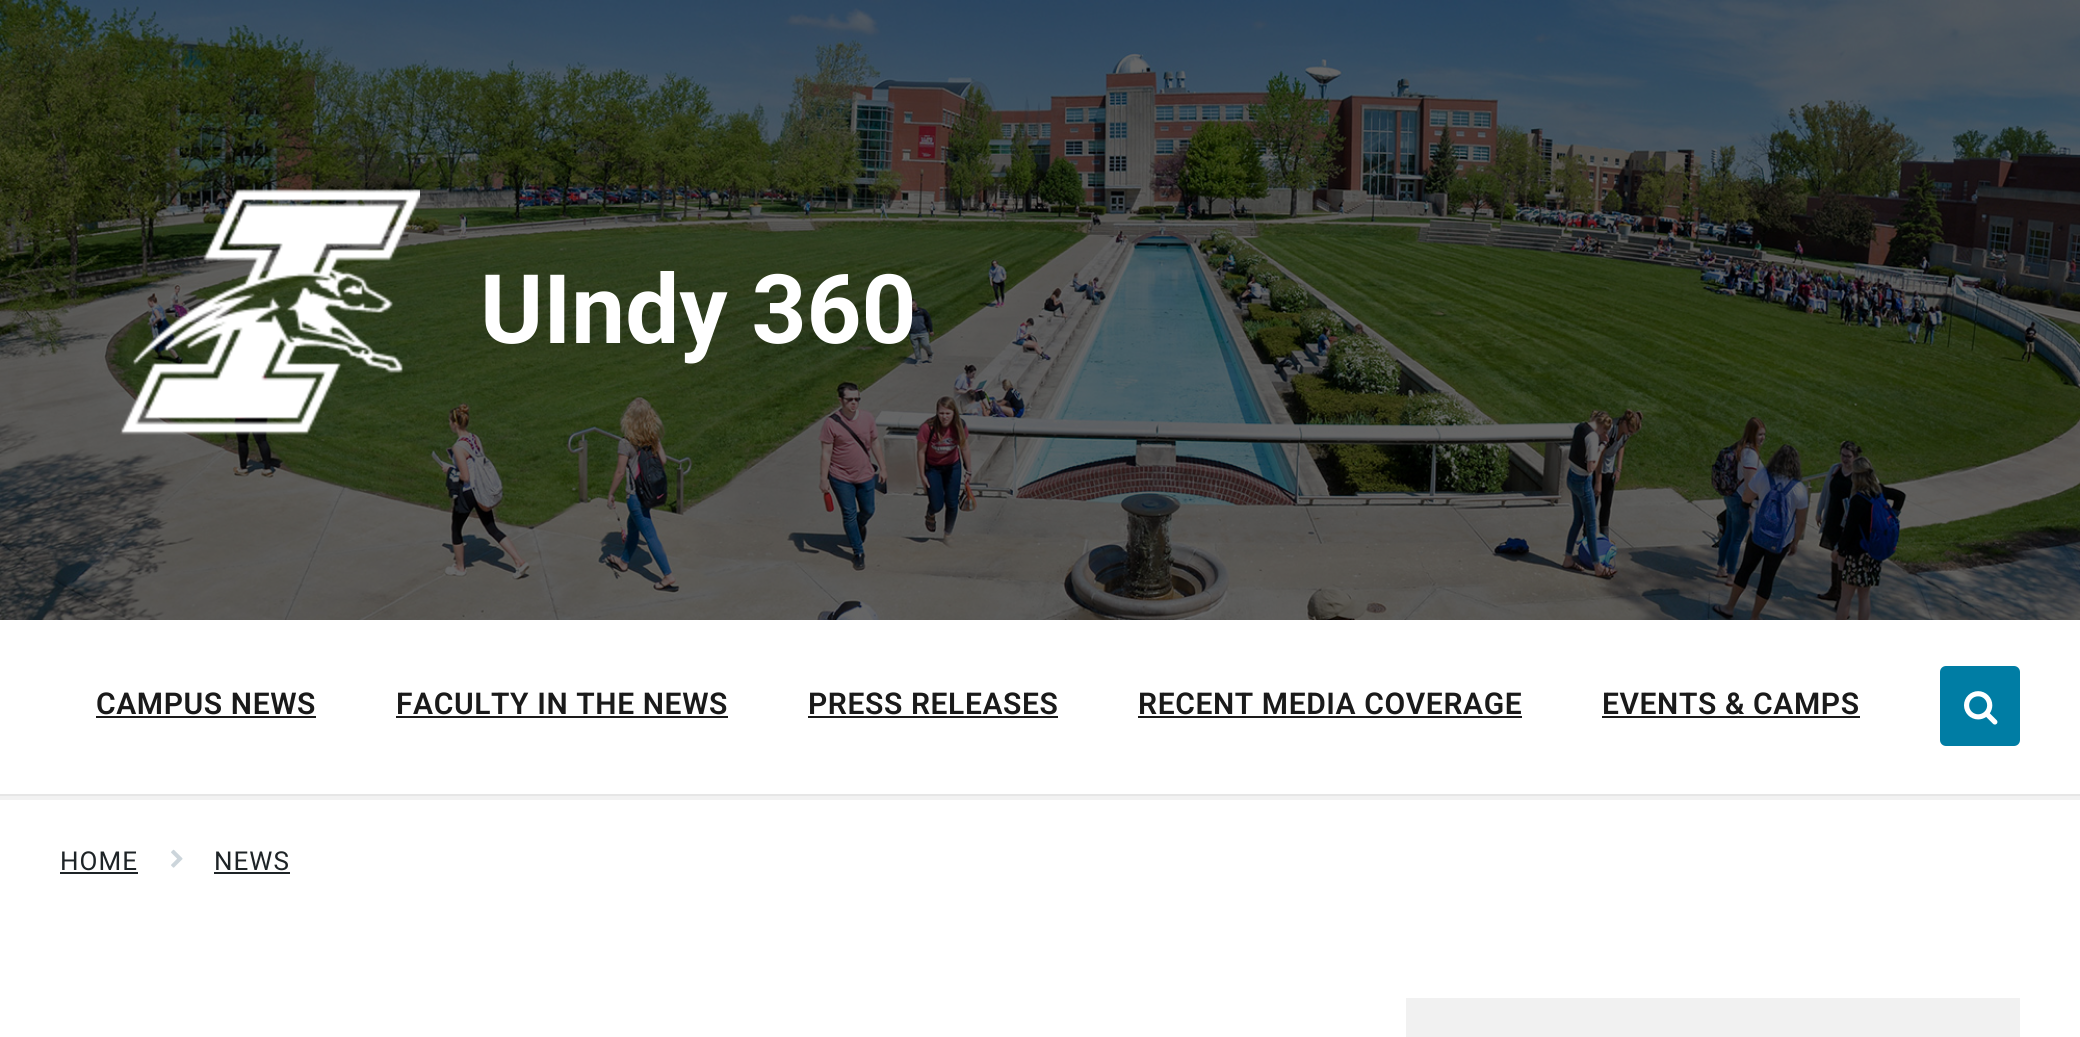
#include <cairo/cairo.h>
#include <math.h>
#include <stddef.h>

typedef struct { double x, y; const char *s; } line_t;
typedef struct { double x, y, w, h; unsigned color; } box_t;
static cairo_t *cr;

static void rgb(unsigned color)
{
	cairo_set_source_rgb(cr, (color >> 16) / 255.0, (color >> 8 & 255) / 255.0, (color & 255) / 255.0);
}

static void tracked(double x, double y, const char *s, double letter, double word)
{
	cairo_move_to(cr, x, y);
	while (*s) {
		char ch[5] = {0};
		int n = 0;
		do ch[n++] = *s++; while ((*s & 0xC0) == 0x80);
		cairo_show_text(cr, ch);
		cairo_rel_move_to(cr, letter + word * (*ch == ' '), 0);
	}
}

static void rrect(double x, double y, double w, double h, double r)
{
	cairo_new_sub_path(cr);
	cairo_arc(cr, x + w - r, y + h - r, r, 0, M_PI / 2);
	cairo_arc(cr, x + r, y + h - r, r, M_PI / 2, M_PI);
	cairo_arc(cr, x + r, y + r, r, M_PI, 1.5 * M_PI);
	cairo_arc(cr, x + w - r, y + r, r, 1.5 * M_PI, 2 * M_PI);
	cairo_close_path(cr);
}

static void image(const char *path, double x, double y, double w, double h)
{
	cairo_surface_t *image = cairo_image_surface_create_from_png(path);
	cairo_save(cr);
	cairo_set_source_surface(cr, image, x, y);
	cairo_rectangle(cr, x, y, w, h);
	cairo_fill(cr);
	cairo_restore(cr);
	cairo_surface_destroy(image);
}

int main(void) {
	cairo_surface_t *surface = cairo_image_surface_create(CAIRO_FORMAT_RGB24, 2080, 1037);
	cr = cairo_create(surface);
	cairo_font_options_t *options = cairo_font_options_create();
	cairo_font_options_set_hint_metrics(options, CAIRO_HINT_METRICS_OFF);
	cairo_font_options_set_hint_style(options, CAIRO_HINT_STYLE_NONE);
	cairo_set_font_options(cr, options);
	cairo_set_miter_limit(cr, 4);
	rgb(0xffffff);
	cairo_paint(cr);
	cairo_rectangle(cr, -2, 618, 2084, 180);
	rgb(0xf2f2f2);
	cairo_set_line_width(cr, 4);
	cairo_stroke(cr);
	image("img/1.png", 0, 0, 2080, 620);
	image("img/2.png", 120, 189, 300, 246);
	{
		static const box_t items[] = {
			{0, 794, 2080, 2, 0xe6e6e6},
			{96, 716, 220, 2, 0x1a1a1a},
			{396, 716, 332, 2, 0x1a1a1a},
			{808, 716, 250, 2, 0x1a1a1a},
			{1138, 716, 384, 2, 0x1a1a1a},
			{1602, 716, 258, 2, 0x1a1a1a},
		};
		for (size_t i = 0; i < sizeof items / sizeof *items; i++) {
			rgb(items[i].color);
			cairo_rectangle(cr, items[i].x, items[i].y, items[i].w, items[i].h);
			cairo_fill(cr);
		}
	}
	rgb(0x007da4);
	rrect(1940, 666, 80, 80, 6);
	cairo_fill(cr);
	image("img/3.png", 1964, 691, 34, 34);
	rgb(0x1e2427);
	cairo_rectangle(cr, 60, 872, 78, 2);
	cairo_fill(cr);
	image("img/4.png", 171, 849, 12, 19);
	cairo_rectangle(cr, 214, 872, 76, 2);
	cairo_fill(cr);
	rgb(0xf1f1f1);
	cairo_rectangle(cr, 1406, 998, 614, 39);
	cairo_fill(cr);
	cairo_select_font_face(cr, "Roboto", CAIRO_FONT_SLANT_NORMAL, CAIRO_FONT_WEIGHT_BOLD);
	cairo_set_font_size(cr, 96);
	rgb(0xffffff);
	cairo_move_to(cr, 480, 343);
	cairo_show_text(cr, "UIndy 360");
	cairo_select_font_face(cr, "Roboto SemiBold", CAIRO_FONT_SLANT_NORMAL, CAIRO_FONT_WEIGHT_NORMAL);
	cairo_set_font_size(cr, 30);
	rgb(0x1a1a1a);
	{
		static const line_t items[] = {
			{96, 714, "CAMPUS NEWS"},
			{396, 714, "FACULTY IN THE NEWS"},
			{808, 714, "PRESS RELEASES"},
			{1138, 714, "RECENT MEDIA COVERAGE"},
			{1602, 714, "EVENTS & CAMPS"},
		};
		for (size_t i = 0; i < sizeof items / sizeof *items; i++) {
			tracked(items[i].x, items[i].y, items[i].s, 0.6, 0);
		}
	}
	cairo_select_font_face(cr, "Roboto", CAIRO_FONT_SLANT_NORMAL, CAIRO_FONT_WEIGHT_NORMAL);
	cairo_set_font_size(cr, 26);
	rgb(0x1e2427);
	tracked(60, 870, "HOME", 1, 0);
	tracked(214, 870, "NEWS", 1, 0);
	cairo_surface_write_to_png(surface, "page.png");
	cairo_font_options_destroy(options);
	cairo_destroy(cr);
	cairo_surface_destroy(surface);
	return 0;
}
